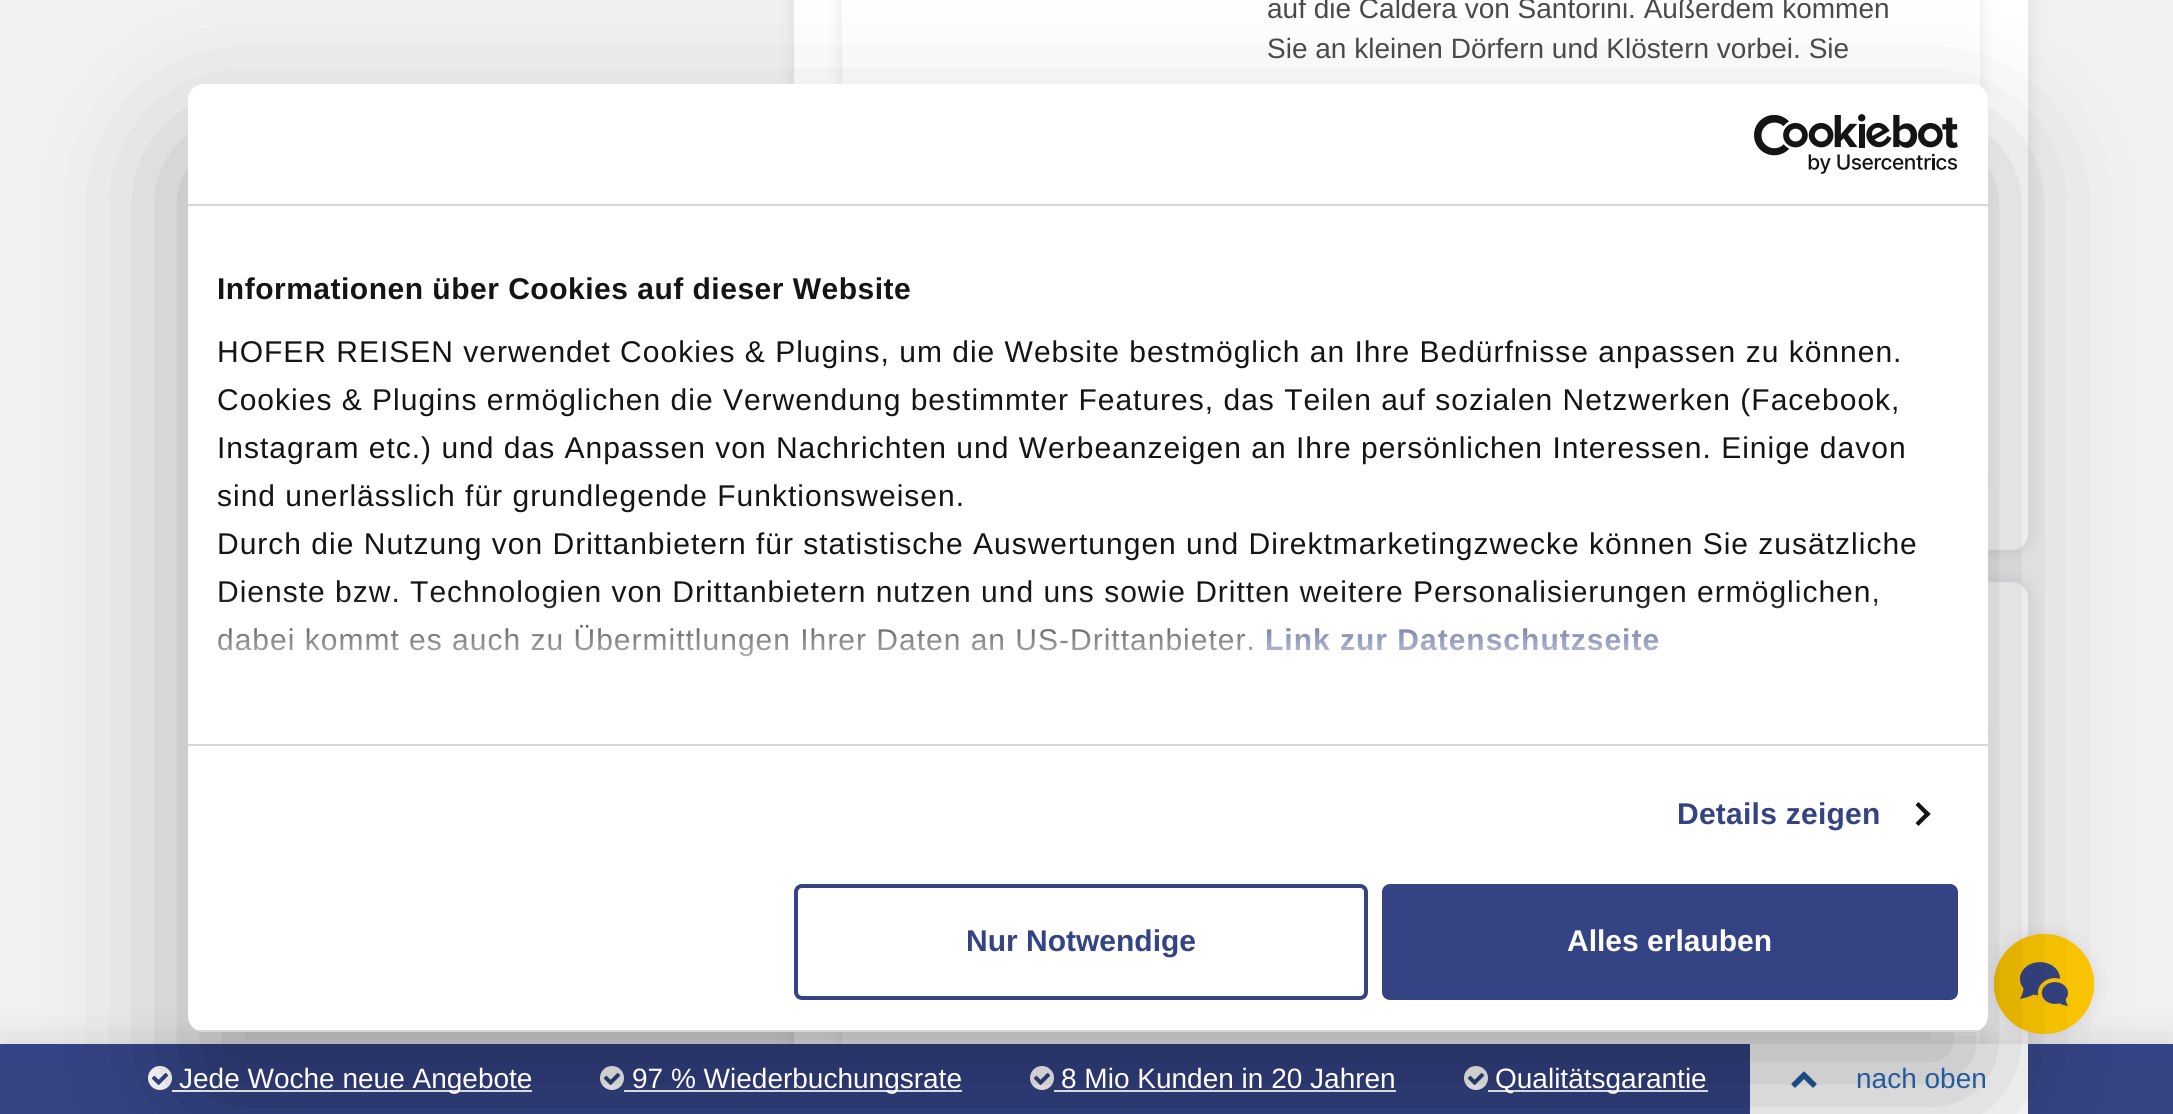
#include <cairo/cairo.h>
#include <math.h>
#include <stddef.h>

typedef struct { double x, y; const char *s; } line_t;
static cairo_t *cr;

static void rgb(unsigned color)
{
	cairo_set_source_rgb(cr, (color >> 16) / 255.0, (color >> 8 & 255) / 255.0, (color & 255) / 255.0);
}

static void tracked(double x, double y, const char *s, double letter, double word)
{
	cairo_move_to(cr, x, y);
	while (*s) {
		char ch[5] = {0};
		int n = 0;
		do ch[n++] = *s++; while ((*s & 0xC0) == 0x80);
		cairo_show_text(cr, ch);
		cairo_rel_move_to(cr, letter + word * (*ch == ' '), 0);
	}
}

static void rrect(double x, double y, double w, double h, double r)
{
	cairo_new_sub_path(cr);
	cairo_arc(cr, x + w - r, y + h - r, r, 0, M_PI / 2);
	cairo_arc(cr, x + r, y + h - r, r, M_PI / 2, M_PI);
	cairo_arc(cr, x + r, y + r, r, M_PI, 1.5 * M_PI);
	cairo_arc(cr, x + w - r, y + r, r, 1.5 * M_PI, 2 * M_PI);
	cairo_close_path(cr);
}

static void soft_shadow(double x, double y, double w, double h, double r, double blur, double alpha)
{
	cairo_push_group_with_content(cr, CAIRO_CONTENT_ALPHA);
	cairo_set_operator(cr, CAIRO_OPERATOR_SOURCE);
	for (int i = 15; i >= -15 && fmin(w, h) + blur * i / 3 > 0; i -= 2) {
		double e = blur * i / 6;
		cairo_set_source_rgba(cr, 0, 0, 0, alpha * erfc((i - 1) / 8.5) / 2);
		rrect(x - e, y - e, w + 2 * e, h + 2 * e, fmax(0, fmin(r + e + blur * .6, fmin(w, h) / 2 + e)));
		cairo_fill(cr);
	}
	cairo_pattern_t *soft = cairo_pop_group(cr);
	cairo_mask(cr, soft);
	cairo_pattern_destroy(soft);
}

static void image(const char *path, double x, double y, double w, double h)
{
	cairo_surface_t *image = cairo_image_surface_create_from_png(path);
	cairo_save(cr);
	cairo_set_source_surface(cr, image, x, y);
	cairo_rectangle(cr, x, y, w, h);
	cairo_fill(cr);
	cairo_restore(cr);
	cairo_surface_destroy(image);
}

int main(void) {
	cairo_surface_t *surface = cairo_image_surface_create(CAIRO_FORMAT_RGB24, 2173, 1114);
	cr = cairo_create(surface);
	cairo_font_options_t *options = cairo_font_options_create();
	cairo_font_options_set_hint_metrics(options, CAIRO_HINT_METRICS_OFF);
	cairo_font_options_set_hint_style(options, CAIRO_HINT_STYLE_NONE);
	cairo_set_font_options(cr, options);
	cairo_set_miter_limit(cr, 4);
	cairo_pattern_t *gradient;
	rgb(0xf1f1f1);
	cairo_paint(cr);
	rgb(0x00005f);
	soft_shadow(794, -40, 1234, 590, 16, 8, 0.1);
	rgb(0xffffff);
	rrect(794, -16, 1234, 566, 16);
	cairo_fill(cr);
	rgb(0x00005f);
	soft_shadow(842, -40, 1138, 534, 16, 8, 0.1);
	rgb(0xffffff);
	cairo_rectangle(cr, 842, 0, 1138, 87);
	cairo_fill(cr);
	rgb(0x00005f);
	soft_shadow(794, 582, 1234, 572, 16, 8, 0.1);
	rgb(0xffffff);
	rrect(794, 582, 1234, 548, 16);
	cairo_fill(cr);
	rgb(0x00005f);
	soft_shadow(842, 718, 1138, 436, 16, 8, 0.1);
	rgb(0xffffff);
	cairo_rectangle(cr, 842, 1029, 1138, 15);
	cairo_fill(cr);
	rgb(0x000000);
	soft_shadow(0, 1038, 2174, 70, 0, 15, 0.1);
	rgb(0x344384);
	cairo_rectangle(cr, 0, 1044, 2173, 70);
	cairo_fill(cr);
	image("img/1.png", 148, 1066, 24, 24);
	rgb(0xffffff);
	cairo_rectangle(cr, 172, 1090, 360, 2);
	cairo_fill(cr);
	image("img/1.png", 600, 1066, 24, 24);
	cairo_rectangle(cr, 624, 1090, 338, 2);
	cairo_fill(cr);
	image("img/1.png", 1030, 1066, 24, 24);
	cairo_rectangle(cr, 1054, 1090, 342, 2);
	cairo_fill(cr);
	image("img/1.png", 1464, 1066, 24, 24);
	cairo_rectangle(cr, 1488, 1090, 220, 2);
	cairo_fill(cr);
	cairo_rectangle(cr, 1750, 1044, 278, 70);
	cairo_fill(cr);
	image("img/2.png", 1791, 1071, 26, 17);
	rgb(0x00005f);
	soft_shadow(1994, 934, 100, 100, 50, 8, 0.1);
	rgb(0xffc800);
	cairo_arc(cr, 2044, 984, 50, 0, 2 * M_PI);
	cairo_fill(cr);
	image("img/4.png", 2020, 962, 48, 45);
	cairo_arc(cr, 2044, 984, 49, 0, 2 * M_PI);
	cairo_stroke(cr);
	rgb(0x000000);
	soft_shadow(188, 148, 1800, 948, 16, 68, 0.3);
	rgb(0xffffff);
	rrect(188, 84, 1800, 948, 16);
	cairo_fill(cr);
	rgb(0xd6d6d6);
	cairo_rectangle(cr, 188, 204, 1800, 2);
	cairo_fill(cr);
	image("img/3.png", 1754, 114, 204, 60);
	cairo_rectangle(cr, 188, 744, 1800, 2);
	cairo_fill(cr);
	rgb(0x141414);
	cairo_new_path(cr);
	cairo_move_to(cr, 1918.5, 802);
	cairo_line_to(cr, 1930.5, 814);
	cairo_line_to(cr, 1927.5, 817);
	cairo_line_to(cr, 1915.5, 805);
	cairo_close_path(cr);
	cairo_fill(cr);
	cairo_new_path(cr);
	cairo_move_to(cr, 1927.5, 811);
	cairo_line_to(cr, 1930.5, 814);
	cairo_line_to(cr, 1918.5, 826);
	cairo_line_to(cr, 1915.5, 823);
	cairo_close_path(cr);
	cairo_fill(cr);
	cairo_save(cr);
	rrect(188, 84, 1800, 948, 16);
	cairo_clip(cr);
	rgb(0xd6d6d6);
	cairo_rectangle(cr, 188, 1030, 1800, 2);
	cairo_fill(cr);
	cairo_restore(cr);
	rrect(796, 886, 570, 112, 6);
	rgb(0x344384);
	cairo_set_line_width(cr, 4);
	cairo_stroke(cr);
	rrect(1384, 886, 572, 112, 6);
	cairo_fill_preserve(cr);
	cairo_stroke(cr);
	cairo_select_font_face(cr, "Liberation Sans", CAIRO_FONT_SLANT_NORMAL, CAIRO_FONT_WEIGHT_NORMAL);
	cairo_set_font_size(cr, 28);
	rgb(0x4a4a4a);
	cairo_move_to(cr, 1267, 18);
	cairo_show_text(cr, "auf die Caldera von Santorini. Außerdem kommen");
	cairo_move_to(cr, 1267, 58);
	cairo_show_text(cr, "Sie an kleinen Dörfern und Klöstern vorbei. Sie");
	rgb(0xffffff);
	{
		static const line_t items[] = {
			{179, 1088, "Jede Woche neue Angebote"},
			{632, 1088, "97 % Wiederbuchungsrate"},
			{1061, 1088, "8 Mio Kunden in 20 Jahren"},
			{1495, 1088, "Qualitätsgarantie"},
		};
		for (size_t i = 0; i < sizeof items / sizeof *items; i++) {
			cairo_move_to(cr, items[i].x, items[i].y);
			cairo_show_text(cr, items[i].s);
		}
	}
	rgb(0x225b9e);
	cairo_move_to(cr, 1856, 1088);
	cairo_show_text(cr, "nach oben");
	cairo_select_font_face(cr, "Liberation Sans", CAIRO_FONT_SLANT_NORMAL, CAIRO_FONT_WEIGHT_BOLD);
	cairo_set_font_size(cr, 30);
	rgb(0x141414);
	tracked(217, 299, "Informationen über Cookies auf dieser Website", 0.5, 0);
	cairo_select_font_face(cr, "Liberation Sans", CAIRO_FONT_SLANT_NORMAL, CAIRO_FONT_WEIGHT_NORMAL);
	{
		static const line_t items[] = {
			{217, 362, "HOFER REISEN verwendet Cookies & Plugins, um die Website bestmöglich an Ihre Bedürfnisse anpassen zu können."},
			{217, 410, "Cookies & Plugins ermöglichen die Verwendung bestimmter Features, das Teilen auf sozialen Netzwerken (Facebook,"},
			{217, 458, "Instagram etc.) und das Anpassen von Nachrichten und Werbeanzeigen an Ihre persönlichen Interessen. Einige davon"},
			{217, 506, "sind unerlässlich für grundlegende Funktionsweisen."},
			{217, 554, "Durch die Nutzung von Drittanbietern für statistische Auswertungen und Direktmarketingzwecke können Sie zusätzliche"},
			{217, 602, "Dienste bzw. Technologien von Drittanbietern nutzen und uns sowie Dritten weitere Personalisierungen ermöglichen,"},
			{217, 650, "dabei kommt es auch zu Übermittlungen Ihrer Daten an US-Drittanbieter."},
		};
		for (size_t i = 0; i < sizeof items / sizeof *items; i++) {
			tracked(items[i].x, items[i].y, items[i].s, 1, 0);
		}
	}
	cairo_select_font_face(cr, "Liberation Sans", CAIRO_FONT_SLANT_NORMAL, CAIRO_FONT_WEIGHT_BOLD);
	rgb(0x344384);
	tracked(1265, 650, "Link zur Datenschutzseite", 1, 0);
	gradient = cairo_pattern_create_linear(1075, 744, 1075, 594);
	cairo_pattern_add_color_stop_rgba(gradient, 0, 1, 1, 1, 1);
	cairo_pattern_add_color_stop_rgba(gradient, 0.5, 1, 1, 1, 0.8);
	cairo_pattern_add_color_stop_rgba(gradient, 1, 1, 1, 1, 0);
	cairo_set_source(cr, gradient);
	cairo_pattern_destroy(gradient);
	cairo_rectangle(cr, 218, 596, 1660, 61);
	cairo_fill(cr);
	rgb(0x344384);
	tracked(1677, 824, "Details zeigen", 0.25, 0);
	cairo_move_to(cr, 966, 951);
	cairo_show_text(cr, "Nur Notwendige");
	rgb(0xffffff);
	cairo_move_to(cr, 1567, 951);
	cairo_show_text(cr, "Alles erlauben");
	cairo_surface_write_to_png(surface, "page.png");
	cairo_font_options_destroy(options);
	cairo_destroy(cr);
	cairo_surface_destroy(surface);
	return 0;
}
